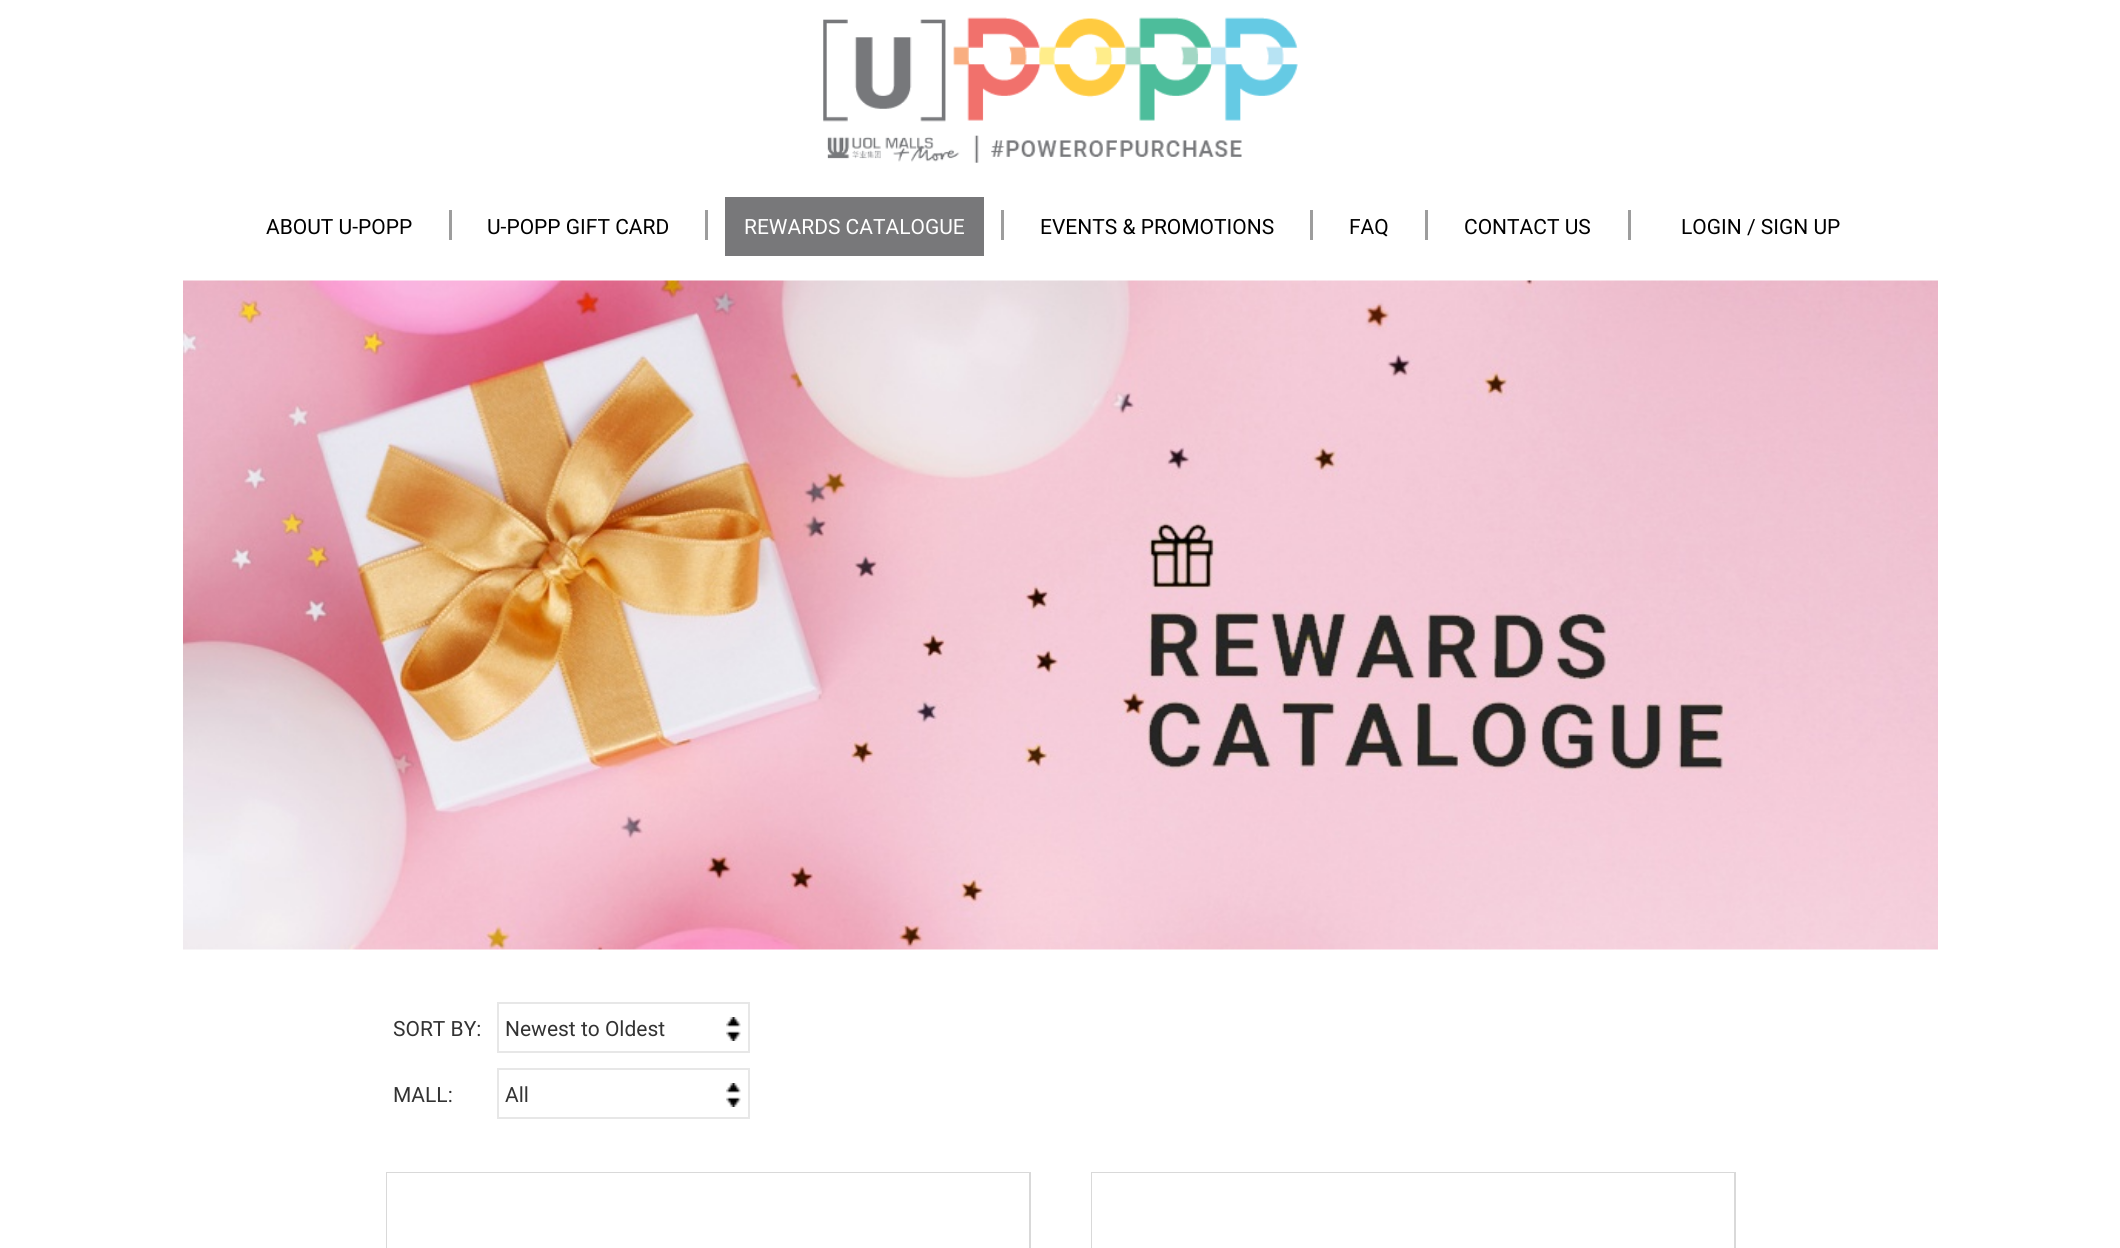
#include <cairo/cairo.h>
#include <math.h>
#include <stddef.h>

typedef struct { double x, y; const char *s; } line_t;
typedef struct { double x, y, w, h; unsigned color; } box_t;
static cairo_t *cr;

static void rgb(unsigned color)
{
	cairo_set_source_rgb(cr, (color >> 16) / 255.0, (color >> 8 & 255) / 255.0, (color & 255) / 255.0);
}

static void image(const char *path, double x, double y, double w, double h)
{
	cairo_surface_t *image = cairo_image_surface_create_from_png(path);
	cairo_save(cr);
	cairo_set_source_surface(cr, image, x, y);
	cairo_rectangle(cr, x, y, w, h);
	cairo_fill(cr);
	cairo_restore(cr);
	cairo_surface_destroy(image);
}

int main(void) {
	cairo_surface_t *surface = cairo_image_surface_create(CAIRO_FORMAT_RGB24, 2120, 1248);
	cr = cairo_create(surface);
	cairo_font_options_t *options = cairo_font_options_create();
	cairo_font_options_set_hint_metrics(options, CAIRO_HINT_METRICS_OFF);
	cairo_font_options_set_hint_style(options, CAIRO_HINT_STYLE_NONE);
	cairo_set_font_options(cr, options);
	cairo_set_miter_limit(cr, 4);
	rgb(0xffffff);
	cairo_paint(cr);
	image("img/1.png", 823, 17, 475, 146);
	{
		static const box_t items[] = {
			{449, 210, 3, 30, 0x9d9d9d},
			{705, 210, 3, 30, 0x9d9d9d},
			{725, 197, 259, 59, 0x78787a},
			{1001, 210, 3, 30, 0x9d9d9d},
			{1310, 210, 3, 30, 0x9d9d9d},
			{1425, 210, 3, 30, 0x9d9d9d},
			{1628, 210, 3, 30, 0x9d9d9d},
		};
		for (size_t i = 0; i < sizeof items / sizeof *items; i++) {
			rgb(items[i].color);
			cairo_rectangle(cr, items[i].x, items[i].y, items[i].w, items[i].h);
			cairo_fill(cr);
		}
	}
	image("img/2.png", 183, 280, 1755, 670);
	image("img/3.png", 726, 1017, 15, 24);
	cairo_rectangle(cr, 498, 1003, 251, 49);
	rgb(0xe7e7e7);
	cairo_stroke(cr);
	image("img/4.png", 726, 1083, 15, 24);
	cairo_rectangle(cr, 498, 1069, 251, 49);
	cairo_stroke(cr);
	cairo_rectangle(cr, 387, 1173, 643, 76);
	rgb(0xd9d9d9);
	cairo_stroke(cr);
	rgb(0xffffff);
	cairo_rectangle(cr, 387, 1173, 642, 75);
	cairo_fill(cr);
	cairo_rectangle(cr, 1092, 1173, 643, 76);
	rgb(0xd9d9d9);
	cairo_stroke(cr);
	rgb(0xffffff);
	cairo_rectangle(cr, 1092, 1173, 642, 75);
	cairo_fill(cr);
	cairo_select_font_face(cr, "Roboto", CAIRO_FONT_SLANT_NORMAL, CAIRO_FONT_WEIGHT_NORMAL);
	cairo_set_font_size(cr, 21);
	rgb(0x000000);
	cairo_move_to(cr, 266, 234);
	cairo_show_text(cr, "ABOUT U-POPP");
	cairo_move_to(cr, 487, 234);
	cairo_show_text(cr, "U-POPP GIFT CARD");
	rgb(0xffffff);
	cairo_move_to(cr, 744, 234);
	cairo_show_text(cr, "REWARDS CATALOGUE");
	rgb(0x000000);
	{
		static const line_t items[] = {
			{1040, 234, "EVENTS & PROMOTIONS"},
			{1349, 234, "FAQ"},
			{1464, 234, "CONTACT US"},
			{1681, 234, "LOGIN / SIGN UP"},
		};
		for (size_t i = 0; i < sizeof items / sizeof *items; i++) {
			cairo_move_to(cr, items[i].x, items[i].y);
			cairo_show_text(cr, items[i].s);
		}
	}
	rgb(0x333333);
	{
		static const line_t items[] = {
			{393, 1036, "SORT BY:"},
			{505, 1036, "Newest to Oldest"},
			{393, 1102, "MALL:"},
			{505, 1102, "All"},
		};
		for (size_t i = 0; i < sizeof items / sizeof *items; i++) {
			cairo_move_to(cr, items[i].x, items[i].y);
			cairo_show_text(cr, items[i].s);
		}
	}
	cairo_surface_write_to_png(surface, "page.png");
	cairo_font_options_destroy(options);
	cairo_destroy(cr);
	cairo_surface_destroy(surface);
	return 0;
}
